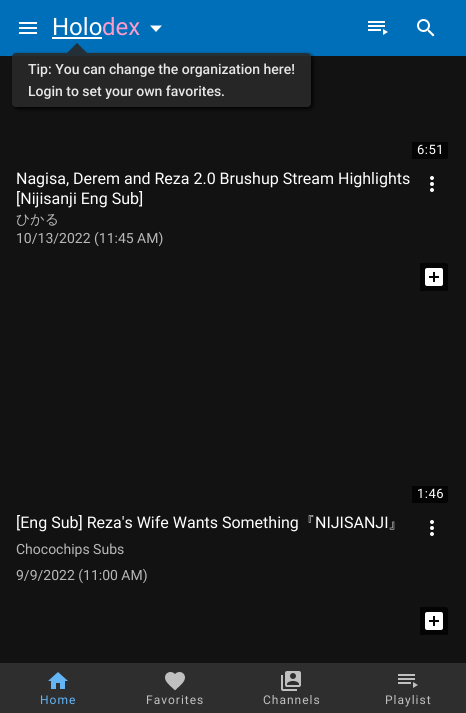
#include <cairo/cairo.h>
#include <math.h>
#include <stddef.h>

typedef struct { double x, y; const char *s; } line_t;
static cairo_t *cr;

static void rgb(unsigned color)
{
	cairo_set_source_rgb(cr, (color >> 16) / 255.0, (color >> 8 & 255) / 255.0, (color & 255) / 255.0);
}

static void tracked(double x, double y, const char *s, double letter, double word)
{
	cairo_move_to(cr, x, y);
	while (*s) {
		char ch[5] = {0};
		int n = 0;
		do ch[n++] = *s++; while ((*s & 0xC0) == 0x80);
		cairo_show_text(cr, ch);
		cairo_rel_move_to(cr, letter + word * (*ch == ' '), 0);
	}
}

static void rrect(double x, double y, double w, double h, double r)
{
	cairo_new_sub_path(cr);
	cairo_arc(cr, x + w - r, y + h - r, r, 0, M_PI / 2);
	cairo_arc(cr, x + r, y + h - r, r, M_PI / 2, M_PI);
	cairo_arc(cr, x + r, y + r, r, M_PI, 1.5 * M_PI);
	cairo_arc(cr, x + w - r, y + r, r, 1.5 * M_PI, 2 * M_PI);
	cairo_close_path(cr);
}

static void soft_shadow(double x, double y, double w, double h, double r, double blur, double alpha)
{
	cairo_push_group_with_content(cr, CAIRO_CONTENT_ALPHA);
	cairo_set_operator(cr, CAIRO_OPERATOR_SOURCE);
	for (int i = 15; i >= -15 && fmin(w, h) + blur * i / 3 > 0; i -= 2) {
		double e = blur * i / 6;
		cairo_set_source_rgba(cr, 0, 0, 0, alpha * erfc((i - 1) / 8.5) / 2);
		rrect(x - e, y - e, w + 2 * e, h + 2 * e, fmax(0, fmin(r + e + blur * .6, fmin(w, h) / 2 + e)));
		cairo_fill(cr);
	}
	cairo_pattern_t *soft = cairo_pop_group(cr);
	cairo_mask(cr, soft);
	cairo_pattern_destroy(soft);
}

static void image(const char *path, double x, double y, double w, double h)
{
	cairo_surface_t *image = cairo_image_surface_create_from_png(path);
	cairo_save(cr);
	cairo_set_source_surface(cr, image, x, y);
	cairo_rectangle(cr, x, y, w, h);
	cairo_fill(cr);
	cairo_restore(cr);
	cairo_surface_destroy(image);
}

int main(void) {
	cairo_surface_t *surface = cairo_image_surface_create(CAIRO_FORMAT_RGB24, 466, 713);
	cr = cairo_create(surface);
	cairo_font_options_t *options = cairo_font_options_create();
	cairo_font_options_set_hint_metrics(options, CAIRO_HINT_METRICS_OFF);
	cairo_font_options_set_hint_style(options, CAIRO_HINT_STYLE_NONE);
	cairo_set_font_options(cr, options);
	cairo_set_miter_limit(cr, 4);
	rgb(0x121212);
	cairo_paint(cr);
	rgb(0x006fb9);
	cairo_rectangle(cr, 0, 0, 466, 56);
	cairo_fill(cr);
	image("img/1.png", 19, 22, 18, 12);
	rgb(0xffffff);
	cairo_rectangle(cr, 52, 37, 50, 2);
	cairo_fill(cr);
	cairo_new_path(cr);
	cairo_move_to(cr, 150, 25.5);
	cairo_line_to(cr, 156, 32);
	cairo_line_to(cr, 162, 25.5);
	cairo_close_path(cr);
	cairo_fill(cr);
	image("img/2.png", 368, 21, 20, 14);
	image("img/3.png", 417, 19, 18, 18);
	rgb(0x2e2e2e);
	cairo_rectangle(cr, 0, 663, 466, 50);
	cairo_fill(cr);
	image("img/4.png", 48, 672, 20, 17);
	image("img/5.png", 165, 672, 20, 19);
	image("img/6.png", 281, 671, 20, 20);
	image("img/7.png", 398, 674, 20, 14);
	rgb(0x040404);
	cairo_new_path(cr);
	cairo_move_to(cr, 412, 142);
	cairo_line_to(cr, 448, 142);
	cairo_line_to(cr, 448, 157);
	cairo_curve_to(cr, 448, 158, 447, 159, 446, 159);
	cairo_line_to(cr, 412, 159);
	cairo_close_path(cr);
	cairo_fill(cr);
	image("img/8.png", 430, 176, 4, 16);
	cairo_new_path(cr);
	cairo_move_to(cr, 420, 263);
	cairo_line_to(cr, 446, 263);
	cairo_curve_to(cr, 447, 263, 448, 264, 448, 265);
	cairo_line_to(cr, 448, 291);
	cairo_line_to(cr, 420, 291);
	cairo_close_path(cr);
	cairo_fill(cr);
	image("img/9.png", 425, 268, 18, 18);
	cairo_new_path(cr);
	cairo_move_to(cr, 412, 486);
	cairo_line_to(cr, 448, 486);
	cairo_line_to(cr, 448, 501);
	cairo_curve_to(cr, 448, 502, 447, 503, 446, 503);
	cairo_line_to(cr, 412, 503);
	cairo_close_path(cr);
	cairo_fill(cr);
	image("img/8.png", 430, 520, 4, 16);
	cairo_new_path(cr);
	cairo_move_to(cr, 420, 607);
	cairo_line_to(cr, 446, 607);
	cairo_curve_to(cr, 447, 607, 448, 608, 448, 609);
	cairo_line_to(cr, 448, 635);
	cairo_line_to(cr, 420, 635);
	cairo_close_path(cr);
	cairo_fill(cr);
	image("img/9.png", 425, 612, 18, 18);
	cairo_save(cr);
	cairo_set_fill_rule(cr, CAIRO_FILL_RULE_EVEN_ODD);
	cairo_new_path(cr);
	cairo_move_to(cr, 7, 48);
	cairo_line_to(cr, 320, 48);
	cairo_line_to(cr, 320, 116);
	cairo_line_to(cr, 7, 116);
	cairo_close_path(cr);
	cairo_move_to(cr, 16, 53);
	cairo_line_to(cr, 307, 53);
	cairo_curve_to(cr, 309, 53, 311, 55, 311, 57);
	cairo_line_to(cr, 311, 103);
	cairo_curve_to(cr, 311, 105, 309, 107, 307, 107);
	cairo_line_to(cr, 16, 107);
	cairo_curve_to(cr, 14, 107, 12, 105, 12, 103);
	cairo_line_to(cr, 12, 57);
	cairo_curve_to(cr, 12, 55, 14, 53, 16, 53);
	cairo_close_path(cr);
	cairo_clip(cr);
	rgb(0x000000);
	soft_shadow(14, 55, 299, 54, 4, 2, 0.9);
	cairo_restore(cr);
	cairo_set_source_rgba(cr, 0.157, 0.157, 0.157, 0.9);
	rrect(12, 53, 299, 54, 4);
	cairo_fill(cr);
	rgb(0x242f37);
	cairo_new_path(cr);
	cairo_move_to(cr, 87, 53);
	cairo_line_to(cr, 67, 53);
	cairo_line_to(cr, 77, 43);
	cairo_close_path(cr);
	cairo_fill(cr);
	cairo_select_font_face(cr, "Roboto", CAIRO_FONT_SLANT_NORMAL, CAIRO_FONT_WEIGHT_NORMAL);
	cairo_set_font_size(cr, 24);
	rgb(0xffffff);
	cairo_move_to(cr, 52, 35);
	cairo_show_text(cr, "Holo");
	rgb(0xff9ac8);
	cairo_move_to(cr, 102, 35);
	cairo_show_text(cr, "dex");
	cairo_set_font_size(cr, 12);
	rgb(0x64b5f6);
	tracked(40, 704, "Home", 1, 0);
	rgb(0xc0c0c0);
	{
		static const line_t items[] = {
			{146, 704, "Favorites"},
			{263, 704, "Channels"},
			{385, 704, "Playlist"},
		};
		for (size_t i = 0; i < sizeof items / sizeof *items; i++) {
			tracked(items[i].x, items[i].y, items[i].s, 1, 0);
		}
	}
	cairo_set_font_size(cr, 13);
	rgb(0xffffff);
	tracked(417, 154, "6:51", 0.5, 0);
	cairo_set_font_size(cr, 16);
	cairo_move_to(cr, 16, 184);
	cairo_show_text(cr, "Nagisa, Derem and Reza 2.0 Brushup Stream Highlights");
	cairo_move_to(cr, 16, 204);
	cairo_show_text(cr, "[Nijisanji Eng Sub]");
	cairo_select_font_face(cr, "WenQuanYi Zen Hei Medium", CAIRO_FONT_SLANT_NORMAL, CAIRO_FONT_WEIGHT_NORMAL);
	cairo_set_font_size(cr, 14);
	rgb(0xb8b8b8);
	cairo_move_to(cr, 16, 224);
	cairo_show_text(cr, "ひかる");
	cairo_select_font_face(cr, "Roboto", CAIRO_FONT_SLANT_NORMAL, CAIRO_FONT_WEIGHT_NORMAL);
	cairo_move_to(cr, 16, 243);
	cairo_show_text(cr, "10/13/2022 (11:45 AM)");
	cairo_set_font_size(cr, 13);
	rgb(0xffffff);
	tracked(417, 498, "1:46", 0.5, 0);
	cairo_set_font_size(cr, 16);
	cairo_move_to(cr, 16, 528);
	cairo_show_text(cr, "[Eng Sub] Reza's Wife Wants Something");
	cairo_select_font_face(cr, "WenQuanYi Zen Hei Medium", CAIRO_FONT_SLANT_NORMAL, CAIRO_FONT_WEIGHT_NORMAL);
	cairo_move_to(cr, 299, 528);
	cairo_show_text(cr, "『");
	cairo_select_font_face(cr, "Roboto", CAIRO_FONT_SLANT_NORMAL, CAIRO_FONT_WEIGHT_NORMAL);
	cairo_move_to(cr, 315, 528);
	cairo_show_text(cr, "NIJISANJI");
	cairo_select_font_face(cr, "WenQuanYi Zen Hei Medium", CAIRO_FONT_SLANT_NORMAL, CAIRO_FONT_WEIGHT_NORMAL);
	cairo_move_to(cr, 388, 528);
	cairo_show_text(cr, "』");
	cairo_select_font_face(cr, "Roboto", CAIRO_FONT_SLANT_NORMAL, CAIRO_FONT_WEIGHT_NORMAL);
	cairo_set_font_size(cr, 14);
	rgb(0xb8b8b8);
	cairo_move_to(cr, 16, 554);
	cairo_show_text(cr, "Chocochips Subs");
	cairo_move_to(cr, 16, 580);
	cairo_show_text(cr, "9/9/2022 (11:00 AM)");
	cairo_select_font_face(cr, "Roboto Medium", CAIRO_FONT_SLANT_NORMAL, CAIRO_FONT_WEIGHT_NORMAL);
	rgb(0xe7e7e7);
	cairo_move_to(cr, 28, 74);
	cairo_show_text(cr, "Tip: You can change the organization here!");
	cairo_move_to(cr, 28, 96);
	cairo_show_text(cr, "Login to set your own favorites.");
	cairo_surface_write_to_png(surface, "page.png");
	cairo_font_options_destroy(options);
	cairo_destroy(cr);
	cairo_surface_destroy(surface);
	return 0;
}
